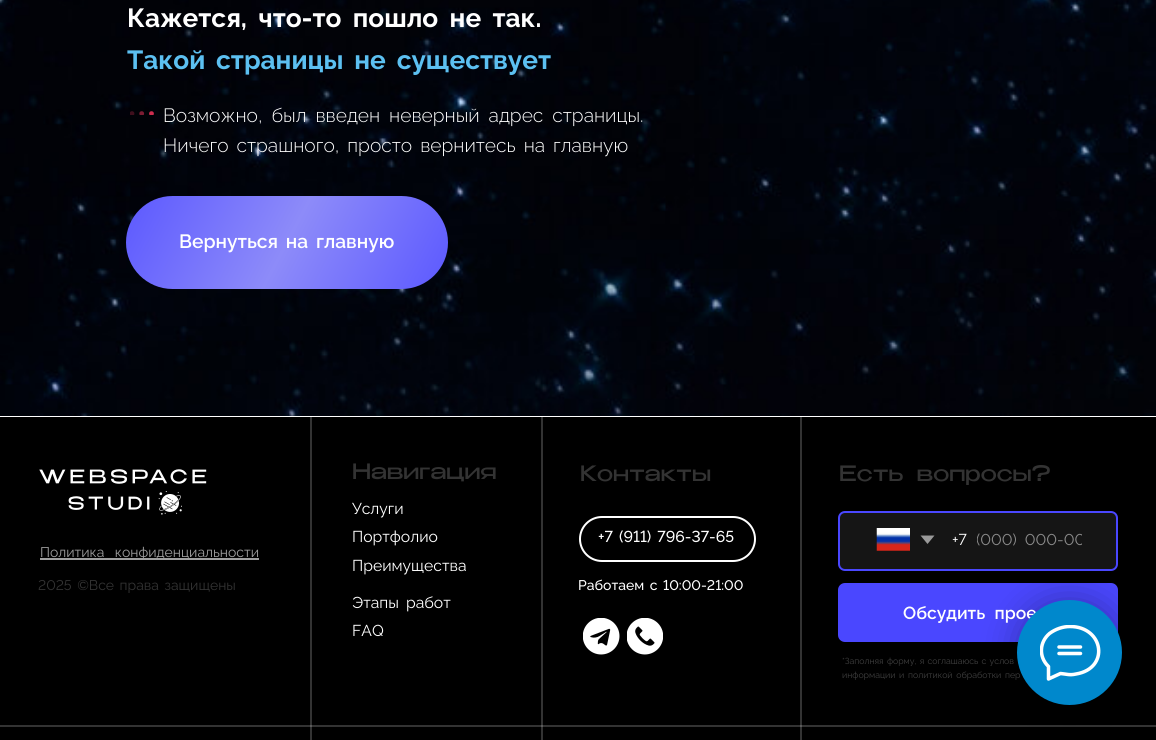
#include <cairo/cairo.h>
#include <math.h>
#include <stddef.h>

typedef struct { double x, y, w, h; unsigned color; } box_t;
static cairo_t *cr;

static void rgb(unsigned color)
{
	cairo_set_source_rgb(cr, (color >> 16) / 255.0, (color >> 8 & 255) / 255.0, (color & 255) / 255.0);
}

static void tracked(double x, double y, const char *s, double letter, double word)
{
	cairo_move_to(cr, x, y);
	while (*s) {
		char ch[5] = {0};
		int n = 0;
		do ch[n++] = *s++; while ((*s & 0xC0) == 0x80);
		cairo_show_text(cr, ch);
		cairo_rel_move_to(cr, letter + word * (*ch == ' '), 0);
	}
}

static void rrect(double x, double y, double w, double h, double r)
{
	cairo_new_sub_path(cr);
	cairo_arc(cr, x + w - r, y + h - r, r, 0, M_PI / 2);
	cairo_arc(cr, x + r, y + h - r, r, M_PI / 2, M_PI);
	cairo_arc(cr, x + r, y + r, r, M_PI, 1.5 * M_PI);
	cairo_arc(cr, x + w - r, y + r, r, 1.5 * M_PI, 2 * M_PI);
	cairo_close_path(cr);
}

static void soft_shadow(double x, double y, double w, double h, double r, double blur, double alpha)
{
	cairo_push_group_with_content(cr, CAIRO_CONTENT_ALPHA);
	cairo_set_operator(cr, CAIRO_OPERATOR_SOURCE);
	for (int i = 15; i >= -15 && fmin(w, h) + blur * i / 3 > 0; i -= 2) {
		double e = blur * i / 6;
		cairo_set_source_rgba(cr, 0, 0, 0, alpha * erfc((i - 1) / 8.5) / 2);
		rrect(x - e, y - e, w + 2 * e, h + 2 * e, fmax(0, fmin(r + e + blur * .6, fmin(w, h) / 2 + e)));
		cairo_fill(cr);
	}
	cairo_pattern_t *soft = cairo_pop_group(cr);
	cairo_mask(cr, soft);
	cairo_pattern_destroy(soft);
}

static void image(const char *path, double x, double y, double w, double h)
{
	cairo_surface_t *image = cairo_image_surface_create_from_png(path);
	cairo_save(cr);
	cairo_set_source_surface(cr, image, x, y);
	cairo_rectangle(cr, x, y, w, h);
	cairo_fill(cr);
	cairo_restore(cr);
	cairo_surface_destroy(image);
}

int main(void) {
	cairo_surface_t *surface = cairo_image_surface_create(CAIRO_FORMAT_RGB24, 1156, 740);
	cr = cairo_create(surface);
	cairo_font_options_t *options = cairo_font_options_create();
	cairo_font_options_set_hint_metrics(options, CAIRO_HINT_METRICS_OFF);
	cairo_font_options_set_hint_style(options, CAIRO_HINT_STYLE_NONE);
	cairo_set_font_options(cr, options);
	cairo_set_miter_limit(cr, 4);
	cairo_pattern_t *gradient;
	rgb(0xffffff);
	cairo_paint(cr);
	image("img/1.png", 0, 0, 1156, 416);
	cairo_save(cr);
	cairo_rectangle(cr, 130, 110, 24, 5);
	cairo_clip(cr);
	rgb(0x3f0f1d);
	cairo_arc(cr, 132, 113.6, 2.4, 0, 2 * M_PI);
	cairo_fill(cr);
	rgb(0x7c1c32);
	cairo_arc(cr, 141.7, 113.6, 2.4, 0, 2 * M_PI);
	cairo_fill(cr);
	rgb(0xce2d4f);
	cairo_arc(cr, 151.5, 113.6, 2.4, 0, 2 * M_PI);
	cairo_fill(cr);
	cairo_restore(cr);
	gradient = cairo_pattern_create_linear(432, 319, 142, 166);
	cairo_pattern_add_color_stop_rgba(gradient, 0, 0.361, 0.349, 1, 1);
	cairo_pattern_add_color_stop_rgba(gradient, 0.5, 0.553, 0.545, 0.976, 1);
	cairo_pattern_add_color_stop_rgba(gradient, 1, 0.361, 0.349, 1, 1);
	cairo_set_source(cr, gradient);
	cairo_pattern_destroy(gradient);
	rrect(126, 196, 322, 93, 46.5);
	cairo_fill(cr);
	rgb(0x000000);
	cairo_rectangle(cr, 0, 417, 1156, 323);
	cairo_fill(cr);
	rgb(0x333333);
	cairo_rectangle(cr, 0, 725, 1156, 2);
	cairo_fill(cr);
	image("img/2.png", 39, 469, 168, 46);
	{
		static const box_t items[] = {
			{310, 417, 2, 323, 0x333333},
			{310, 725, 2, 2, 0x5c5c5c},
			{541, 417, 2, 323, 0x333333},
			{541, 725, 2, 2, 0x5c5c5c},
			{800, 417, 2, 323, 0x333333},
			{800, 725, 2, 2, 0x5c5c5c},
		};
		for (size_t i = 0; i < sizeof items / sizeof *items; i++) {
			rgb(items[i].color);
			cairo_rectangle(cr, items[i].x, items[i].y, items[i].w, items[i].h);
			cairo_fill(cr);
		}
	}
	rrect(580, 517, 175, 44, 22);
	rgb(0xffffff);
	cairo_stroke(cr);
	rgb(0x9f9f9f);
	cairo_rectangle(cr, 40, 558, 219, 2);
	cairo_fill(cr);
	rgb(0x151515);
	rrect(839, 512, 278, 58, 6);
	cairo_fill_preserve(cr);
	rgb(0x4a47ff);
	cairo_stroke(cr);
	image("img/3.png", 876, 528, 34, 23);
	rgb(0x9a9a9a);
	cairo_new_path(cr);
	cairo_move_to(cr, 920.5, 535.5);
	cairo_line_to(cr, 934.5, 535.5);
	cairo_line_to(cr, 927.5, 544);
	cairo_close_path(cr);
	cairo_fill(cr);
	rgb(0x4a47ff);
	rrect(838, 583, 280, 59, 7);
	cairo_fill(cr);
	image("img/4.png", 583, 618, 37, 37);
	image("img/5.png", 627, 618, 36, 37);
	rgb(0x000000);
	soft_shadow(1017, 600, 105, 105, 52.5, 17.5, 0.3);
	cairo_select_font_face(cr, "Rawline", CAIRO_FONT_SLANT_NORMAL, CAIRO_FONT_WEIGHT_BOLD);
	cairo_set_font_size(cr, 26.25);
	rgb(0xffffff);
	tracked(127, 27, "Кажется, что-то пошло не так.", 0, 5);
	rgb(0x5cc0f1);
	tracked(127, 69, "Такой страницы не существует", 0, 4.5);
	cairo_select_font_face(cr, "Rawline Light", CAIRO_FONT_SLANT_NORMAL, CAIRO_FONT_WEIGHT_NORMAL);
	cairo_set_font_size(cr, 19.25);
	rgb(0xffffff);
	tracked(163, 122, "Возможно, был введен неверный адрес страницы.", 0, 4);
	tracked(163, 152, "Ничего страшного, просто вернитесь на главную", 0, 3);
	cairo_select_font_face(cr, "Rawline SemiBold", CAIRO_FONT_SLANT_NORMAL, CAIRO_FONT_WEIGHT_NORMAL);
	tracked(179, 248, "Вернуться на главную", 0, 3);
	cairo_select_font_face(cr, "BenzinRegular", CAIRO_FONT_SLANT_NORMAL, CAIRO_FONT_WEIGHT_NORMAL);
	cairo_set_font_size(cr, 21);
	rgb(0x333333);
	cairo_move_to(cr, 352, 479);
	cairo_show_text(cr, "Навигация");
	cairo_move_to(cr, 580, 481);
	cairo_show_text(cr, "Контакты");
	tracked(839, 481, "Есть вопросы?", 0, 6);
	cairo_select_font_face(cr, "Rawline", CAIRO_FONT_SLANT_NORMAL, CAIRO_FONT_WEIGHT_NORMAL);
	cairo_set_font_size(cr, 15.75);
	rgb(0xffffff);
	cairo_move_to(cr, 352, 514);
	cairo_show_text(cr, "Услуги");
	cairo_move_to(cr, 352, 542);
	cairo_show_text(cr, "Портфолио");
	cairo_set_font_size(cr, 14);
	rgb(0x9f9f9f);
	tracked(40, 557, "Политика конфиденциальности", 0, 7);
	cairo_select_font_face(cr, "Rawline Medium", CAIRO_FONT_SLANT_NORMAL, CAIRO_FONT_WEIGHT_NORMAL);
	cairo_set_font_size(cr, 15.75);
	rgb(0xffffff);
	tracked(598, 542, "+7 (911) 796-37-65", 0, 2);
	cairo_select_font_face(cr, "Rawline", CAIRO_FONT_SLANT_NORMAL, CAIRO_FONT_WEIGHT_NORMAL);
	cairo_move_to(cr, 952, 545);
	cairo_show_text(cr, "+7");
	cairo_save(cr);
	cairo_rectangle(cr, 977, 529, 105, 22);
	cairo_clip(cr);
	rgb(0x8a8a8a);
	tracked(976, 545, "(000) 000-00", 0, 4);
	cairo_restore(cr);
	cairo_select_font_face(cr, "Rawline SemiBold", CAIRO_FONT_SLANT_NORMAL, CAIRO_FONT_WEIGHT_NORMAL);
	cairo_set_font_size(cr, 17.5);
	tracked(903, 619, "Обсудить прое", 0, 5);
	cairo_select_font_face(cr, "Rawline", CAIRO_FONT_SLANT_NORMAL, CAIRO_FONT_WEIGHT_NORMAL);
	cairo_set_font_size(cr, 15.75);
	cairo_move_to(cr, 352, 571);
	cairo_show_text(cr, "Преимущества");
	cairo_set_font_size(cr, 14);
	rgb(0x333333);
	tracked(38, 590, "2025 ©Все права защищены", 0, 2);
	cairo_select_font_face(cr, "Rawline Medium", CAIRO_FONT_SLANT_NORMAL, CAIRO_FONT_WEIGHT_NORMAL);
	rgb(0xffffff);
	tracked(578, 590, "Работаем с 10:00-21:00", 0, 2);
	cairo_select_font_face(cr, "Rawline", CAIRO_FONT_SLANT_NORMAL, CAIRO_FONT_WEIGHT_NORMAL);
	cairo_set_font_size(cr, 15.75);
	tracked(352, 608, "Этапы работ", 0, 3);
	cairo_move_to(cr, 352, 636);
	cairo_show_text(cr, "FAQ");
	cairo_set_font_size(cr, 8.75);
	rgb(0x404040);
	tracked(842, 664, "*Заполняя форму, я соглашаюсь с услов", 0, 1);
	tracked(842, 678, "информации и политикой обработки пер", 0, 1.5);
	rgb(0x0088cc);
	cairo_new_path(cr);
	cairo_arc(cr, 1069.5, 652.5, 52.5, 0, 2 * M_PI);
	cairo_fill(cr);
	cairo_save(cr);
	cairo_rectangle(cr, 1040, 625, 61, 56);
	cairo_clip(cr);
	cairo_new_path(cr);
	cairo_move_to(cr, 1059, 647);
	cairo_line_to(cr, 1080.5, 647);
	cairo_move_to(cr, 1059, 653.5);
	cairo_line_to(cr, 1080.5, 653.5);
	cairo_move_to(cr, 1048, 666);
	cairo_curve_to(cr, 1038.5, 656.5, 1039.5, 642, 1049.5, 633.5);
	cairo_curve_to(cr, 1055.5, 629, 1063, 626.5, 1070, 626.5);
	cairo_curve_to(cr, 1104, 626.5, 1110, 668.5, 1076, 674);
	cairo_curve_to(cr, 1069.5, 675.5, 1066.5, 674, 1060.5, 673.5);
	cairo_line_to(cr, 1048.5, 679);
	cairo_line_to(cr, 1048.5, 666.5);
	cairo_close_path(cr);
	rgb(0xffffff);
	cairo_set_line_width(cr, 3.5);
	cairo_set_line_cap(cr, CAIRO_LINE_CAP_ROUND);
	cairo_set_line_join(cr, CAIRO_LINE_JOIN_ROUND);
	cairo_stroke(cr);
	cairo_restore(cr);
	cairo_surface_write_to_png(surface, "page.png");
	cairo_font_options_destroy(options);
	cairo_destroy(cr);
	cairo_surface_destroy(surface);
	return 0;
}
